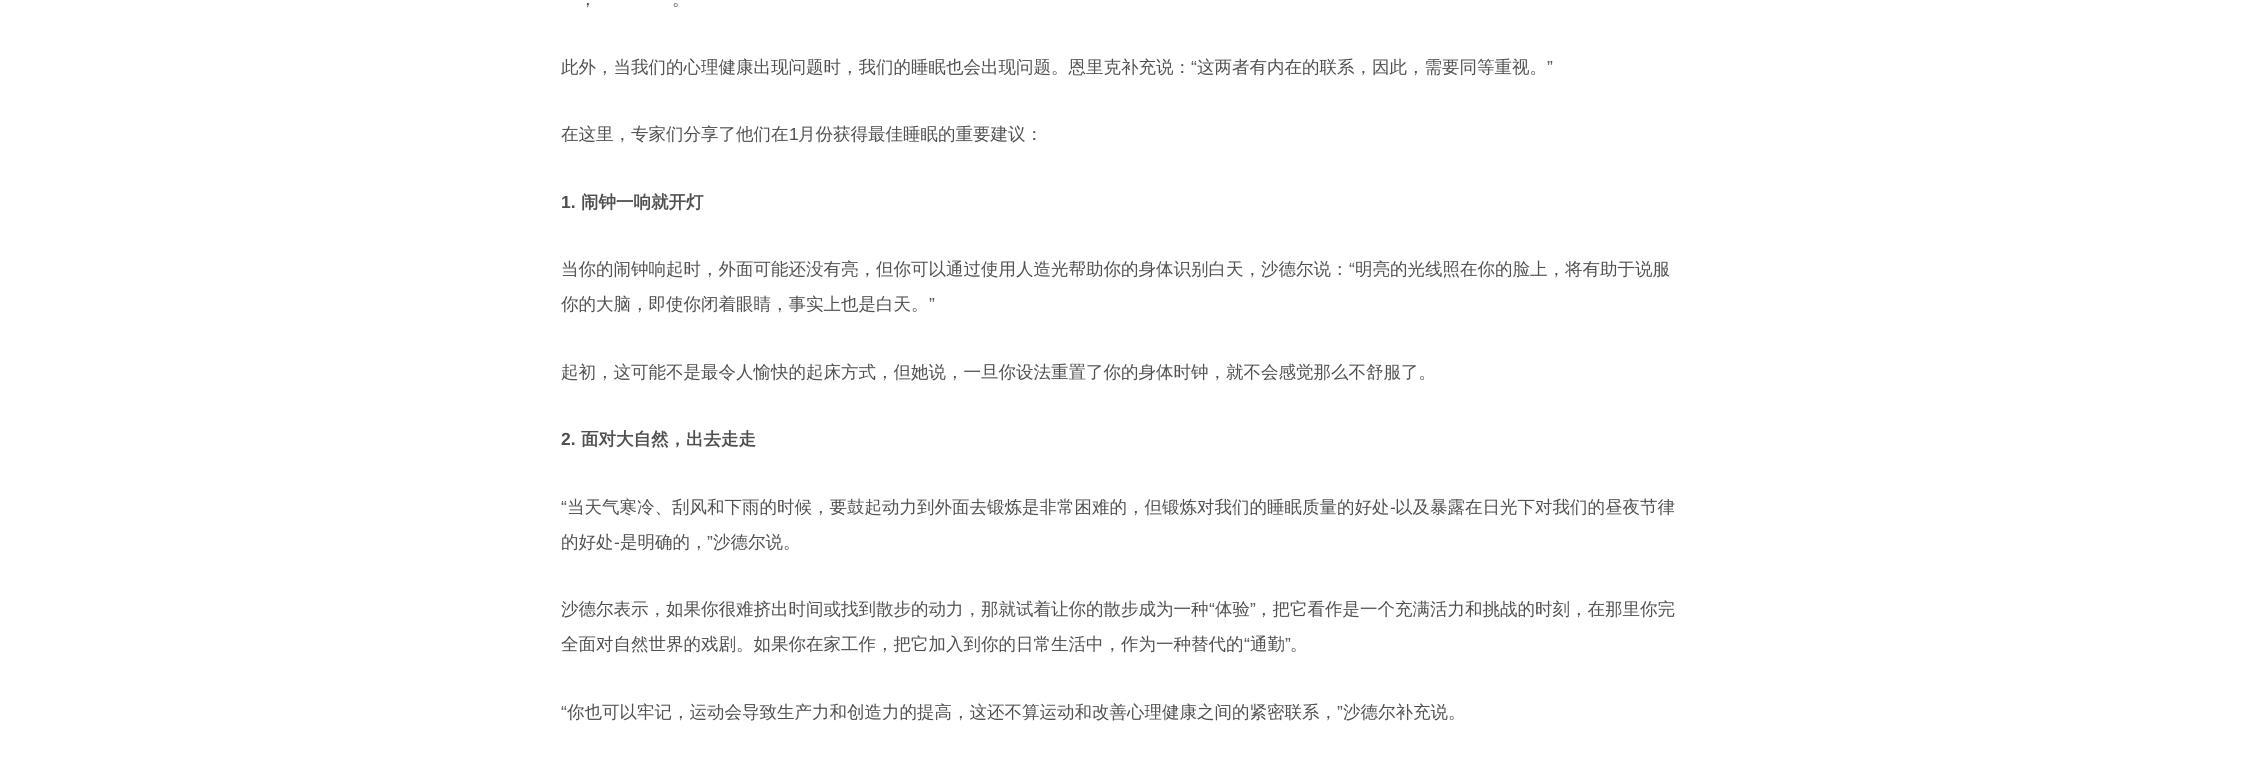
#include <cairo/cairo.h>
#include <math.h>
#include <stddef.h>

typedef struct { double x, y; const char *s; } line_t;
static cairo_t *cr;

static void rgb(unsigned color)
{
	cairo_set_source_rgb(cr, (color >> 16) / 255.0, (color >> 8 & 255) / 255.0, (color & 255) / 255.0);
}

int main(void) {
	cairo_surface_t *surface = cairo_image_surface_create(CAIRO_FORMAT_RGB24, 2247, 763);
	cr = cairo_create(surface);
	cairo_font_options_t *options = cairo_font_options_create();
	cairo_font_options_set_hint_metrics(options, CAIRO_HINT_METRICS_OFF);
	cairo_font_options_set_hint_style(options, CAIRO_HINT_STYLE_NONE);
	cairo_set_font_options(cr, options);
	cairo_set_miter_limit(cr, 4);
	rgb(0xffffff);
	cairo_paint(cr);
	cairo_select_font_face(cr, "WenQuanYi Zen Hei Medium", CAIRO_FONT_SLANT_NORMAL, CAIRO_FONT_WEIGHT_NORMAL);
	cairo_set_font_size(cr, 17.5);
	rgb(0x505050);
	{
		static const line_t items[] = {
			{579, 5, "，"},
			{672, 5, "。"},
			{561, 73, "此外，当我们的心理健康出现问题时，我们的睡眠也会出现问题。恩里克补充说："},
		};
		for (size_t i = 0; i < sizeof items / sizeof *items; i++) {
			cairo_move_to(cr, items[i].x, items[i].y);
			cairo_show_text(cr, items[i].s);
		}
	}
	cairo_select_font_face(cr, "Liberation Sans", CAIRO_FONT_SLANT_NORMAL, CAIRO_FONT_WEIGHT_NORMAL);
	cairo_move_to(cr, 1191, 73);
	cairo_show_text(cr, "“");
	cairo_select_font_face(cr, "WenQuanYi Zen Hei Medium", CAIRO_FONT_SLANT_NORMAL, CAIRO_FONT_WEIGHT_NORMAL);
	cairo_move_to(cr, 1197, 73);
	cairo_show_text(cr, "这两者有内在的联系，因此，需要同等重视。");
	cairo_select_font_face(cr, "Liberation Sans", CAIRO_FONT_SLANT_NORMAL, CAIRO_FONT_WEIGHT_NORMAL);
	cairo_move_to(cr, 1547, 73);
	cairo_show_text(cr, "”");
	cairo_select_font_face(cr, "WenQuanYi Zen Hei Medium", CAIRO_FONT_SLANT_NORMAL, CAIRO_FONT_WEIGHT_NORMAL);
	cairo_move_to(cr, 561, 140);
	cairo_show_text(cr, "在这里，专家们分享了他们在");
	cairo_select_font_face(cr, "Liberation Sans", CAIRO_FONT_SLANT_NORMAL, CAIRO_FONT_WEIGHT_NORMAL);
	cairo_move_to(cr, 789, 140);
	cairo_show_text(cr, "1");
	cairo_select_font_face(cr, "WenQuanYi Zen Hei Medium", CAIRO_FONT_SLANT_NORMAL, CAIRO_FONT_WEIGHT_NORMAL);
	cairo_move_to(cr, 798, 140);
	cairo_show_text(cr, "月份获得最佳睡眠的重要建议：");
	cairo_select_font_face(cr, "Liberation Sans", CAIRO_FONT_SLANT_NORMAL, CAIRO_FONT_WEIGHT_BOLD);
	cairo_move_to(cr, 561, 208);
	cairo_show_text(cr, "1.");
	cairo_select_font_face(cr, "WenQuanYi Zen Hei", CAIRO_FONT_SLANT_NORMAL, CAIRO_FONT_WEIGHT_BOLD);
	cairo_move_to(cr, 581, 208);
	cairo_show_text(cr, "闹钟一响就开灯");
	cairo_select_font_face(cr, "WenQuanYi Zen Hei Medium", CAIRO_FONT_SLANT_NORMAL, CAIRO_FONT_WEIGHT_NORMAL);
	cairo_move_to(cr, 561, 275);
	cairo_show_text(cr, "当你的闹钟响起时，外面可能还没有亮，但你可以通过使用人造光帮助你的身体识别白天，沙德尔说：");
	cairo_select_font_face(cr, "Liberation Sans", CAIRO_FONT_SLANT_NORMAL, CAIRO_FONT_WEIGHT_NORMAL);
	cairo_move_to(cr, 1349, 275);
	cairo_show_text(cr, "“");
	cairo_select_font_face(cr, "WenQuanYi Zen Hei Medium", CAIRO_FONT_SLANT_NORMAL, CAIRO_FONT_WEIGHT_NORMAL);
	cairo_move_to(cr, 1355, 275);
	cairo_show_text(cr, "明亮的光线照在你的脸上，将有助于说服");
	cairo_move_to(cr, 561, 310);
	cairo_show_text(cr, "你的大脑，即使你闭着眼睛，事实上也是白天。");
	cairo_select_font_face(cr, "Liberation Sans", CAIRO_FONT_SLANT_NORMAL, CAIRO_FONT_WEIGHT_NORMAL);
	cairo_move_to(cr, 929, 310);
	cairo_show_text(cr, "”");
	cairo_select_font_face(cr, "WenQuanYi Zen Hei Medium", CAIRO_FONT_SLANT_NORMAL, CAIRO_FONT_WEIGHT_NORMAL);
	cairo_move_to(cr, 561, 378);
	cairo_show_text(cr, "起初，这可能不是最令人愉快的起床方式，但她说，一旦你设法重置了你的身体时钟，就不会感觉那么不舒服了。");
	cairo_select_font_face(cr, "Liberation Sans", CAIRO_FONT_SLANT_NORMAL, CAIRO_FONT_WEIGHT_BOLD);
	cairo_move_to(cr, 561, 445);
	cairo_show_text(cr, "2.");
	cairo_select_font_face(cr, "WenQuanYi Zen Hei", CAIRO_FONT_SLANT_NORMAL, CAIRO_FONT_WEIGHT_BOLD);
	cairo_move_to(cr, 581, 445);
	cairo_show_text(cr, "面对大自然，出去走走");
	cairo_select_font_face(cr, "Liberation Sans", CAIRO_FONT_SLANT_NORMAL, CAIRO_FONT_WEIGHT_NORMAL);
	cairo_move_to(cr, 561, 513);
	cairo_show_text(cr, "“");
	cairo_select_font_face(cr, "WenQuanYi Zen Hei Medium", CAIRO_FONT_SLANT_NORMAL, CAIRO_FONT_WEIGHT_NORMAL);
	cairo_move_to(cr, 567, 513);
	cairo_show_text(cr, "当天气寒冷、刮风和下雨的时候，要鼓起动力到外面去锻炼是非常困难的，但锻炼对我们的睡眠质量的好处");
	cairo_move_to(cr, 1395, 513);
	cairo_show_text(cr, "以及暴露在日光下对我们的昼夜节律");
	cairo_select_font_face(cr, "Liberation Sans", CAIRO_FONT_SLANT_NORMAL, CAIRO_FONT_WEIGHT_NORMAL);
	cairo_move_to(cr, 1390, 513);
	cairo_show_text(cr, "-");
	cairo_select_font_face(cr, "WenQuanYi Zen Hei Medium", CAIRO_FONT_SLANT_NORMAL, CAIRO_FONT_WEIGHT_NORMAL);
	cairo_move_to(cr, 561, 548);
	cairo_show_text(cr, "的好处");
	cairo_move_to(cr, 620, 548);
	cairo_show_text(cr, "是明确的，");
	cairo_select_font_face(cr, "Liberation Sans", CAIRO_FONT_SLANT_NORMAL, CAIRO_FONT_WEIGHT_NORMAL);
	cairo_move_to(cr, 707, 548);
	cairo_show_text(cr, "”");
	cairo_select_font_face(cr, "WenQuanYi Zen Hei Medium", CAIRO_FONT_SLANT_NORMAL, CAIRO_FONT_WEIGHT_NORMAL);
	cairo_move_to(cr, 713, 548);
	cairo_show_text(cr, "沙德尔说。");
	cairo_select_font_face(cr, "Liberation Sans", CAIRO_FONT_SLANT_NORMAL, CAIRO_FONT_WEIGHT_NORMAL);
	cairo_move_to(cr, 614, 548);
	cairo_show_text(cr, "-");
	cairo_select_font_face(cr, "WenQuanYi Zen Hei Medium", CAIRO_FONT_SLANT_NORMAL, CAIRO_FONT_WEIGHT_NORMAL);
	cairo_move_to(cr, 561, 615);
	cairo_show_text(cr, "沙德尔表示，如果你很难挤出时间或找到散步的动力，那就试着让你的散步成为一种");
	cairo_select_font_face(cr, "Liberation Sans", CAIRO_FONT_SLANT_NORMAL, CAIRO_FONT_WEIGHT_NORMAL);
	cairo_move_to(cr, 1209, 615);
	cairo_show_text(cr, "“");
	cairo_select_font_face(cr, "WenQuanYi Zen Hei Medium", CAIRO_FONT_SLANT_NORMAL, CAIRO_FONT_WEIGHT_NORMAL);
	cairo_move_to(cr, 1215, 615);
	cairo_show_text(cr, "体验");
	cairo_select_font_face(cr, "Liberation Sans", CAIRO_FONT_SLANT_NORMAL, CAIRO_FONT_WEIGHT_NORMAL);
	cairo_move_to(cr, 1250, 615);
	cairo_show_text(cr, "”");
	cairo_select_font_face(cr, "WenQuanYi Zen Hei Medium", CAIRO_FONT_SLANT_NORMAL, CAIRO_FONT_WEIGHT_NORMAL);
	cairo_move_to(cr, 1255, 615);
	cairo_show_text(cr, "，把它看作是一个充满活力和挑战的时刻，在那里你完");
	cairo_move_to(cr, 561, 650);
	cairo_show_text(cr, "全面对自然世界的戏剧。如果你在家工作，把它加入到你的日常生活中，作为一种替代的");
	cairo_select_font_face(cr, "Liberation Sans", CAIRO_FONT_SLANT_NORMAL, CAIRO_FONT_WEIGHT_NORMAL);
	cairo_move_to(cr, 1244, 650);
	cairo_show_text(cr, "“");
	cairo_select_font_face(cr, "WenQuanYi Zen Hei Medium", CAIRO_FONT_SLANT_NORMAL, CAIRO_FONT_WEIGHT_NORMAL);
	cairo_move_to(cr, 1250, 650);
	cairo_show_text(cr, "通勤");
	cairo_select_font_face(cr, "Liberation Sans", CAIRO_FONT_SLANT_NORMAL, CAIRO_FONT_WEIGHT_NORMAL);
	cairo_move_to(cr, 1285, 650);
	cairo_show_text(cr, "”");
	cairo_select_font_face(cr, "WenQuanYi Zen Hei Medium", CAIRO_FONT_SLANT_NORMAL, CAIRO_FONT_WEIGHT_NORMAL);
	cairo_move_to(cr, 1290, 650);
	cairo_show_text(cr, "。");
	cairo_select_font_face(cr, "Liberation Sans", CAIRO_FONT_SLANT_NORMAL, CAIRO_FONT_WEIGHT_NORMAL);
	cairo_move_to(cr, 561, 718);
	cairo_show_text(cr, "“");
	cairo_select_font_face(cr, "WenQuanYi Zen Hei Medium", CAIRO_FONT_SLANT_NORMAL, CAIRO_FONT_WEIGHT_NORMAL);
	cairo_move_to(cr, 567, 718);
	cairo_show_text(cr, "你也可以牢记，运动会导致生产力和创造力的提高，这还不算运动和改善心理健康之间的紧密联系，");
	cairo_select_font_face(cr, "Liberation Sans", CAIRO_FONT_SLANT_NORMAL, CAIRO_FONT_WEIGHT_NORMAL);
	cairo_move_to(cr, 1337, 718);
	cairo_show_text(cr, "”");
	cairo_select_font_face(cr, "WenQuanYi Zen Hei Medium", CAIRO_FONT_SLANT_NORMAL, CAIRO_FONT_WEIGHT_NORMAL);
	cairo_move_to(cr, 1343, 718);
	cairo_show_text(cr, "沙德尔补充说。");
	cairo_surface_write_to_png(surface, "page.png");
	cairo_font_options_destroy(options);
	cairo_destroy(cr);
	cairo_surface_destroy(surface);
	return 0;
}
